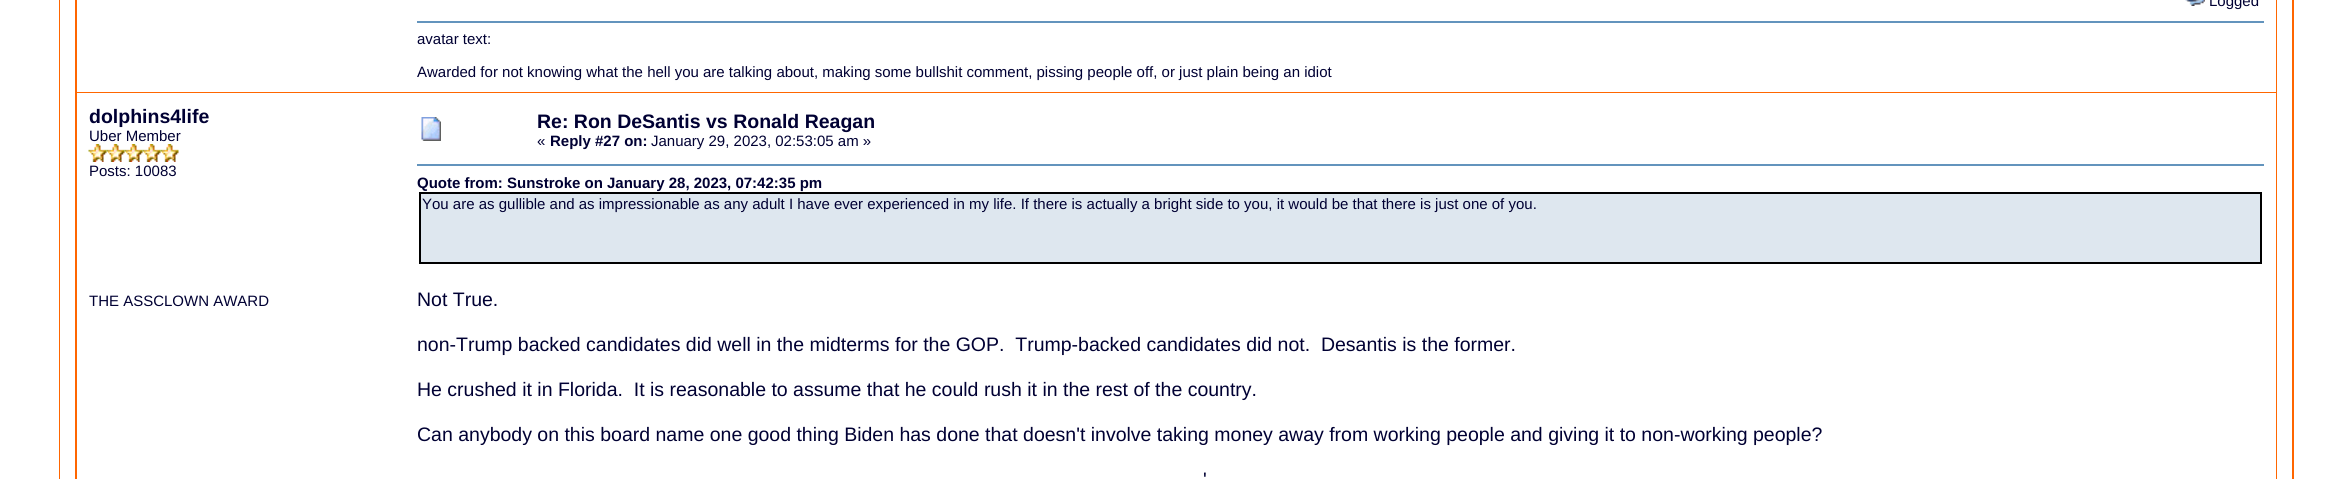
#include <cairo/cairo.h>
#include <math.h>
#include <stddef.h>

typedef struct { double x, y; const char *s; } line_t;
typedef struct { double x, y, w, h; unsigned color; } box_t;
static cairo_t *cr;

static void rgb(unsigned color)
{
	cairo_set_source_rgb(cr, (color >> 16) / 255.0, (color >> 8 & 255) / 255.0, (color & 255) / 255.0);
}

static void image(const char *path, double x, double y, double w, double h)
{
	cairo_surface_t *image = cairo_image_surface_create_from_png(path);
	cairo_save(cr);
	cairo_set_source_surface(cr, image, x, y);
	cairo_rectangle(cr, x, y, w, h);
	cairo_fill(cr);
	cairo_restore(cr);
	cairo_surface_destroy(image);
}

int main(void) {
	cairo_surface_t *surface = cairo_image_surface_create(CAIRO_FORMAT_RGB24, 2351, 479);
	cr = cairo_create(surface);
	cairo_font_options_t *options = cairo_font_options_create();
	cairo_font_options_set_hint_metrics(options, CAIRO_HINT_METRICS_OFF);
	cairo_font_options_set_hint_style(options, CAIRO_HINT_STYLE_NONE);
	cairo_set_font_options(cr, options);
	cairo_set_miter_limit(cr, 4);
	rgb(0xffffff);
	cairo_paint(cr);
	cairo_rectangle(cr, 60, -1, 2233, 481);
	rgb(0xff6600);
	cairo_stroke(cr);
	{
		static const box_t items[] = {
			{60, 0, 1, 479, 0xffffff},
			{75, 0, 2202, 479, 0xff6600},
			{77, 0, 2199, 92, 0xffffff},
		};
		for (size_t i = 0; i < sizeof items / sizeof *items; i++) {
			rgb(items[i].color);
			cairo_rectangle(cr, items[i].x, items[i].y, items[i].w, items[i].h);
			cairo_fill(cr);
		}
	}
	image("img/1.png", 2185, 0, 20, 6);
	rgb(0x6394bd);
	cairo_rectangle(cr, 417, 21, 1847, 2);
	cairo_fill(cr);
	rgb(0xffffff);
	cairo_rectangle(cr, 77, 93, 2199, 386);
	cairo_fill(cr);
	image("img/2.png", 88, 144, 19, 18);
	image("img/3.png", 106, 144, 19, 18);
	image("img/3.png", 124, 144, 19, 18);
	image("img/3.png", 142, 144, 19, 18);
	image("img/3.png", 160, 144, 19, 18);
	image("img/4.png", 421, 117, 20, 24);
	rgb(0x6394bd);
	cairo_rectangle(cr, 417, 164, 1847, 2);
	cairo_fill(cr);
	rgb(0xdee7ef);
	cairo_rectangle(cr, 420, 193, 1841, 70);
	cairo_fill_preserve(cr);
	rgb(0x000000);
	cairo_stroke(cr);
	cairo_select_font_face(cr, "Liberation Sans", CAIRO_FONT_SLANT_NORMAL, CAIRO_FONT_WEIGHT_NORMAL);
	cairo_set_font_size(cr, 15);
	rgb(0x000033);
	{
		static const line_t items[] = {
			{2209, 6, "Logged"},
			{417, 44, "avatar text:"},
			{417, 77, "Awarded for not knowing what the hell you are talking about, making some bullshit comment, pissing people off, or just plain being an idiot"},
		};
		for (size_t i = 0; i < sizeof items / sizeof *items; i++) {
			cairo_move_to(cr, items[i].x, items[i].y);
			cairo_show_text(cr, items[i].s);
		}
	}
	cairo_select_font_face(cr, "Liberation Sans", CAIRO_FONT_SLANT_NORMAL, CAIRO_FONT_WEIGHT_BOLD);
	cairo_set_font_size(cr, 19.5);
	cairo_move_to(cr, 89, 123);
	cairo_show_text(cr, "dolphins4life");
	cairo_select_font_face(cr, "Liberation Sans", CAIRO_FONT_SLANT_NORMAL, CAIRO_FONT_WEIGHT_NORMAL);
	cairo_set_font_size(cr, 15);
	{
		static const line_t items[] = {
			{89, 141, "Uber Member"},
			{89, 176, "Posts: 10083"},
			{89, 306, "THE ASSCLOWN AWARD"},
		};
		for (size_t i = 0; i < sizeof items / sizeof *items; i++) {
			cairo_move_to(cr, items[i].x, items[i].y);
			cairo_show_text(cr, items[i].s);
		}
	}
	cairo_select_font_face(cr, "Liberation Sans", CAIRO_FONT_SLANT_NORMAL, CAIRO_FONT_WEIGHT_BOLD);
	cairo_set_font_size(cr, 19.5);
	cairo_move_to(cr, 537, 128);
	cairo_show_text(cr, "Re: Ron DeSantis vs Ronald Reagan");
	cairo_select_font_face(cr, "Liberation Sans", CAIRO_FONT_SLANT_NORMAL, CAIRO_FONT_WEIGHT_NORMAL);
	cairo_set_font_size(cr, 15);
	cairo_move_to(cr, 537, 146);
	cairo_show_text(cr, "«");
	cairo_select_font_face(cr, "Liberation Sans", CAIRO_FONT_SLANT_NORMAL, CAIRO_FONT_WEIGHT_BOLD);
	cairo_move_to(cr, 550, 146);
	cairo_show_text(cr, "Reply #27 on:");
	cairo_select_font_face(cr, "Liberation Sans", CAIRO_FONT_SLANT_NORMAL, CAIRO_FONT_WEIGHT_NORMAL);
	cairo_move_to(cr, 651, 146);
	cairo_show_text(cr, "January 29, 2023, 02:53:05 am »");
	cairo_select_font_face(cr, "Liberation Sans", CAIRO_FONT_SLANT_NORMAL, CAIRO_FONT_WEIGHT_BOLD);
	cairo_move_to(cr, 417, 188);
	cairo_show_text(cr, "Quote from: Sunstroke on January 28, 2023, 07:42:35 pm");
	cairo_select_font_face(cr, "Liberation Sans", CAIRO_FONT_SLANT_NORMAL, CAIRO_FONT_WEIGHT_NORMAL);
	cairo_move_to(cr, 422, 209);
	cairo_show_text(cr, "You are as gullible and as impressionable as any adult I have ever experienced in my life. If there is actually a bright side to you, it would be that there is just one of you.");
	cairo_set_font_size(cr, 19.5);
	{
		static const line_t items[] = {
			{417, 306, "Not True."},
			{417, 351, "non-Trump backed candidates did well in the midterms for the GOP.  Trump-backed candidates did not.  Desantis is the former."},
			{417, 396, "He crushed it in Florida.  It is reasonable to assume that he could rush it in the rest of the country."},
			{417, 441, "Can anybody on this board name one good thing Biden has done that doesn't involve taking money away from working people and giving it to non-working people?"},
			{1203, 486, "'"},
		};
		for (size_t i = 0; i < sizeof items / sizeof *items; i++) {
			cairo_move_to(cr, items[i].x, items[i].y);
			cairo_show_text(cr, items[i].s);
		}
	}
	cairo_surface_write_to_png(surface, "page.png");
	cairo_font_options_destroy(options);
	cairo_destroy(cr);
	cairo_surface_destroy(surface);
	return 0;
}
